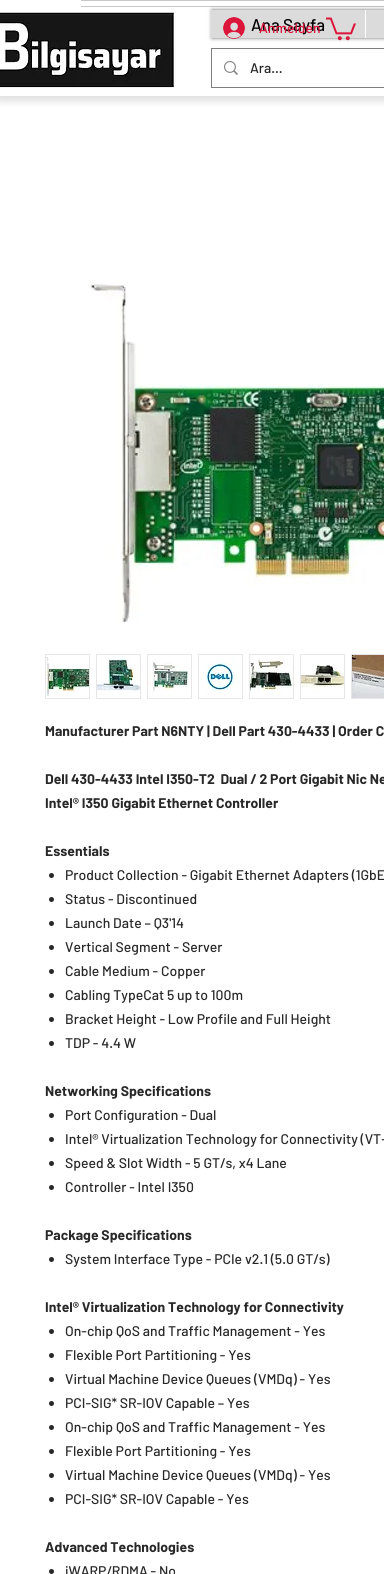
#include <cairo/cairo.h>
#include <math.h>
#include <stddef.h>

typedef struct { double x, y; const char *s; } line_t;
static cairo_t *cr;

static void rgb(unsigned color)
{
	cairo_set_source_rgb(cr, (color >> 16) / 255.0, (color >> 8 & 255) / 255.0, (color & 255) / 255.0);
}

static void rrect(double x, double y, double w, double h, double r)
{
	cairo_new_sub_path(cr);
	cairo_arc(cr, x + w - r, y + h - r, r, 0, M_PI / 2);
	cairo_arc(cr, x + r, y + h - r, r, M_PI / 2, M_PI);
	cairo_arc(cr, x + r, y + r, r, M_PI, 1.5 * M_PI);
	cairo_arc(cr, x + w - r, y + r, r, 1.5 * M_PI, 2 * M_PI);
	cairo_close_path(cr);
}

static void soft_shadow(double x, double y, double w, double h, double r, double blur, double alpha)
{
	cairo_push_group_with_content(cr, CAIRO_CONTENT_ALPHA);
	cairo_set_operator(cr, CAIRO_OPERATOR_SOURCE);
	for (int i = 15; i >= -15 && fmin(w, h) + blur * i / 3 > 0; i -= 2) {
		double e = blur * i / 6;
		cairo_set_source_rgba(cr, 0, 0, 0, alpha * erfc((i - 1) / 8.5) / 2);
		rrect(x - e, y - e, w + 2 * e, h + 2 * e, fmax(0, fmin(r + e + blur * .6, fmin(w, h) / 2 + e)));
		cairo_fill(cr);
	}
	cairo_pattern_t *soft = cairo_pop_group(cr);
	cairo_mask(cr, soft);
	cairo_pattern_destroy(soft);
}

static void image(const char *path, double x, double y, double w, double h)
{
	cairo_surface_t *image = cairo_image_surface_create_from_png(path);
	cairo_save(cr);
	cairo_set_source_surface(cr, image, x, y);
	cairo_rectangle(cr, x, y, w, h);
	cairo_fill(cr);
	cairo_restore(cr);
	cairo_surface_destroy(image);
}

int main(void) {
	cairo_surface_t *surface = cairo_image_surface_create(CAIRO_FORMAT_RGB24, 384, 1574);
	cr = cairo_create(surface);
	cairo_font_options_t *options = cairo_font_options_create();
	cairo_font_options_set_hint_metrics(options, CAIRO_HINT_METRICS_OFF);
	cairo_font_options_set_hint_style(options, CAIRO_HINT_STYLE_NONE);
	cairo_set_font_options(cr, options);
	cairo_set_miter_limit(cr, 4);
	rgb(0xffffff);
	cairo_paint(cr);
	cairo_save(cr);
	cairo_rectangle(cr, 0, 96, 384, 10);
	cairo_clip(cr);
	rgb(0x000000);
	soft_shadow(-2, 0, 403, 100, 0, 5.5, 0.15);
	cairo_restore(cr);
	rgb(0xc7c7c7);
	cairo_rectangle(cr, 81, 0, 303, 1);
	cairo_fill(cr);
	cairo_rectangle(cr, 81, 6, 303, 1);
	cairo_fill(cr);
	image("img/1.png", 0, 11, 176, 77);
	rgb(0x000000);
	soft_shadow(212, 10, 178, 28, 0, 2, 0.6);
	rgb(0xdbdbdb);
	cairo_rectangle(cr, 211, 10, 173, 28);
	cairo_fill(cr);
	rgb(0xffffff);
	cairo_rectangle(cr, 365, 10, 1, 28);
	cairo_fill(cr);
	cairo_rectangle(cr, 211.5, 48.5, 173, 39);
	rgb(0x7e7e7e);
	cairo_set_line_width(cr, 1);
	cairo_stroke(cr);
	image("img/2.png", 224, 61, 14, 14);
	image("img/3.png", 223, 17, 22, 22);
	image("img/4.png", 326, 17, 30, 24);
	image("img/5.png", 90, 282, 294, 342);
	rgb(0xe8e6e6);
	cairo_rectangle(cr, 45, 654, 45, 45);
	cairo_fill(cr);
	image("img/6.png", 46, 655, 43, 43);
	cairo_rectangle(cr, 96, 654, 45, 45);
	cairo_fill(cr);
	image("img/7.png", 97, 655, 43, 43);
	cairo_rectangle(cr, 147, 654, 45, 45);
	cairo_fill(cr);
	image("img/8.png", 148, 655, 43, 43);
	cairo_rectangle(cr, 198, 654, 45, 45);
	cairo_fill(cr);
	image("img/9.png", 199, 655, 43, 43);
	cairo_rectangle(cr, 249, 654, 45, 45);
	cairo_fill(cr);
	image("img/10.png", 250, 655, 43, 43);
	cairo_rectangle(cr, 300, 654, 45, 45);
	cairo_fill(cr);
	image("img/11.png", 301, 655, 43, 43);
	cairo_rectangle(cr, 351, 654, 33, 45);
	cairo_fill(cr);
	image("img/12.png", 352, 655, 32, 43);
	rgb(0x282828);
	cairo_arc(cr, 51.5, 875.5, 2.5, 0, 2 * M_PI);
	cairo_fill(cr);
	cairo_arc(cr, 51.5, 899.5, 2.5, 0, 2 * M_PI);
	cairo_fill(cr);
	cairo_arc(cr, 51.5, 923.5, 2.5, 0, 2 * M_PI);
	cairo_fill(cr);
	cairo_arc(cr, 51.5, 947.5, 2.5, 0, 2 * M_PI);
	cairo_fill(cr);
	cairo_arc(cr, 51.5, 971.5, 2.5, 0, 2 * M_PI);
	cairo_fill(cr);
	cairo_arc(cr, 51.5, 995.5, 2.5, 0, 2 * M_PI);
	cairo_fill(cr);
	cairo_arc(cr, 51.5, 1019.5, 2.5, 0, 2 * M_PI);
	cairo_fill(cr);
	cairo_arc(cr, 51.5, 1043.5, 2.5, 0, 2 * M_PI);
	cairo_fill(cr);
	cairo_arc(cr, 51.5, 1115.5, 2.5, 0, 2 * M_PI);
	cairo_fill(cr);
	cairo_arc(cr, 51.5, 1139.5, 2.5, 0, 2 * M_PI);
	cairo_fill(cr);
	cairo_arc(cr, 51.5, 1163.5, 2.5, 0, 2 * M_PI);
	cairo_fill(cr);
	cairo_arc(cr, 51.5, 1187.5, 2.5, 0, 2 * M_PI);
	cairo_fill(cr);
	cairo_arc(cr, 51.5, 1259.5, 2.5, 0, 2 * M_PI);
	cairo_fill(cr);
	cairo_arc(cr, 51.5, 1331.5, 2.5, 0, 2 * M_PI);
	cairo_fill(cr);
	cairo_arc(cr, 51.5, 1355.5, 2.5, 0, 2 * M_PI);
	cairo_fill(cr);
	cairo_arc(cr, 51.5, 1379.5, 2.5, 0, 2 * M_PI);
	cairo_fill(cr);
	cairo_arc(cr, 51.5, 1403.5, 2.5, 0, 2 * M_PI);
	cairo_fill(cr);
	cairo_arc(cr, 51.5, 1427.5, 2.5, 0, 2 * M_PI);
	cairo_fill(cr);
	cairo_arc(cr, 51.5, 1451.5, 2.5, 0, 2 * M_PI);
	cairo_fill(cr);
	cairo_arc(cr, 51.5, 1475.5, 2.5, 0, 2 * M_PI);
	cairo_fill(cr);
	cairo_arc(cr, 51.5, 1499.5, 2.5, 0, 2 * M_PI);
	cairo_fill(cr);
	cairo_arc(cr, 51.5, 1571.5, 2.5, 0, 2 * M_PI);
	cairo_fill(cr);
	cairo_select_font_face(cr, "Barlow Medium", CAIRO_FONT_SLANT_NORMAL, CAIRO_FONT_WEIGHT_NORMAL);
	cairo_set_font_size(cr, 17);
	rgb(0x000000);
	cairo_move_to(cr, 251, 31);
	cairo_show_text(cr, "Ana Sayfa");
	cairo_set_font_size(cr, 14);
	rgb(0x282828);
	cairo_move_to(cr, 250, 73);
	cairo_show_text(cr, "Ara...");
	rgb(0xdb163a);
	cairo_move_to(cr, 259, 33);
	cairo_show_text(cr, "Anmelden");
	cairo_select_font_face(cr, "Barlow", CAIRO_FONT_SLANT_NORMAL, CAIRO_FONT_WEIGHT_BOLD);
	rgb(0x282828);
	{
		static const line_t items[] = {
			{45, 736, "Manufacturer Part N6NTY | Dell Part 430-4433 | Order C"},
			{45, 784, "Dell 430-4433 Intel I350-T2  Dual / 2 Port Gigabit Nic Ne"},
			{45, 808, "Intel® I350 Gigabit Ethernet Controller"},
			{45, 856, "Essentials"},
		};
		for (size_t i = 0; i < sizeof items / sizeof *items; i++) {
			cairo_move_to(cr, items[i].x, items[i].y);
			cairo_show_text(cr, items[i].s);
		}
	}
	cairo_select_font_face(cr, "Barlow Medium", CAIRO_FONT_SLANT_NORMAL, CAIRO_FONT_WEIGHT_NORMAL);
	{
		static const line_t items[] = {
			{65, 880, "Product Collection - Gigabit Ethernet Adapters (1GbE"},
			{65, 904, "Status - Discontinued"},
			{65, 928, "Launch Date – Q3'14"},
			{65, 952, "Vertical Segment - Server"},
			{65, 976, "Cable Medium - Copper"},
			{65, 1000, "Cabling TypeCat 5 up to 100m"},
			{65, 1024, "Bracket Height - Low Profile and Full Height"},
			{65, 1048, "TDP - 4.4 W"},
		};
		for (size_t i = 0; i < sizeof items / sizeof *items; i++) {
			cairo_move_to(cr, items[i].x, items[i].y);
			cairo_show_text(cr, items[i].s);
		}
	}
	cairo_select_font_face(cr, "Barlow", CAIRO_FONT_SLANT_NORMAL, CAIRO_FONT_WEIGHT_BOLD);
	cairo_move_to(cr, 45, 1096);
	cairo_show_text(cr, "Networking Specifications");
	cairo_select_font_face(cr, "Barlow Medium", CAIRO_FONT_SLANT_NORMAL, CAIRO_FONT_WEIGHT_NORMAL);
	{
		static const line_t items[] = {
			{65, 1120, "Port Configuration - Dual"},
			{65, 1144, "Intel® Virtualization Technology for Connectivity (VT-"},
			{65, 1168, "Speed & Slot Width - 5 GT/s, x4 Lane"},
			{65, 1192, "Controller - Intel I350"},
		};
		for (size_t i = 0; i < sizeof items / sizeof *items; i++) {
			cairo_move_to(cr, items[i].x, items[i].y);
			cairo_show_text(cr, items[i].s);
		}
	}
	cairo_select_font_face(cr, "Barlow", CAIRO_FONT_SLANT_NORMAL, CAIRO_FONT_WEIGHT_BOLD);
	cairo_move_to(cr, 45, 1240);
	cairo_show_text(cr, "Package Specifications");
	cairo_select_font_face(cr, "Barlow Medium", CAIRO_FONT_SLANT_NORMAL, CAIRO_FONT_WEIGHT_NORMAL);
	cairo_move_to(cr, 65, 1264);
	cairo_show_text(cr, "System Interface Type - PCIe v2.1 (5.0 GT/s)");
	cairo_select_font_face(cr, "Barlow", CAIRO_FONT_SLANT_NORMAL, CAIRO_FONT_WEIGHT_BOLD);
	cairo_move_to(cr, 45, 1312);
	cairo_show_text(cr, "Intel® Virtualization Technology for Connectivity");
	cairo_select_font_face(cr, "Barlow Medium", CAIRO_FONT_SLANT_NORMAL, CAIRO_FONT_WEIGHT_NORMAL);
	{
		static const line_t items[] = {
			{65, 1336, "On-chip QoS and Traffic Management - Yes"},
			{65, 1360, "Flexible Port Partitioning - Yes"},
			{65, 1384, "Virtual Machine Device Queues (VMDq) - Yes"},
			{65, 1408, "PCI-SIG* SR-IOV Capable – Yes"},
			{65, 1432, "On-chip QoS and Traffic Management - Yes"},
			{65, 1456, "Flexible Port Partitioning - Yes"},
			{65, 1480, "Virtual Machine Device Queues (VMDq) - Yes"},
			{65, 1504, "PCI-SIG* SR-IOV Capable - Yes"},
		};
		for (size_t i = 0; i < sizeof items / sizeof *items; i++) {
			cairo_move_to(cr, items[i].x, items[i].y);
			cairo_show_text(cr, items[i].s);
		}
	}
	cairo_select_font_face(cr, "Barlow", CAIRO_FONT_SLANT_NORMAL, CAIRO_FONT_WEIGHT_BOLD);
	cairo_move_to(cr, 45, 1552);
	cairo_show_text(cr, "Advanced Technologies");
	cairo_select_font_face(cr, "Barlow Medium", CAIRO_FONT_SLANT_NORMAL, CAIRO_FONT_WEIGHT_NORMAL);
	cairo_move_to(cr, 65, 1576);
	cairo_show_text(cr, "iWARP/RDMA - No");
	cairo_surface_write_to_png(surface, "page.png");
	cairo_font_options_destroy(options);
	cairo_destroy(cr);
	cairo_surface_destroy(surface);
	return 0;
}
